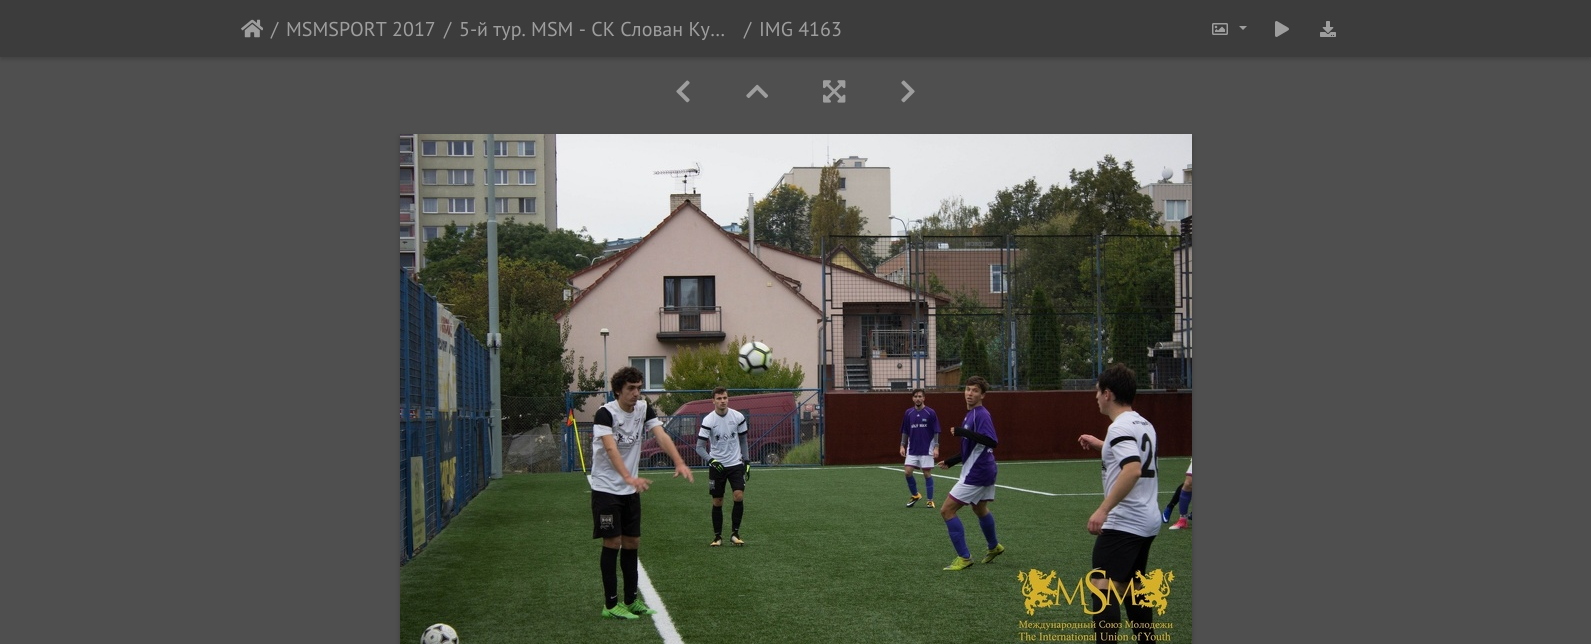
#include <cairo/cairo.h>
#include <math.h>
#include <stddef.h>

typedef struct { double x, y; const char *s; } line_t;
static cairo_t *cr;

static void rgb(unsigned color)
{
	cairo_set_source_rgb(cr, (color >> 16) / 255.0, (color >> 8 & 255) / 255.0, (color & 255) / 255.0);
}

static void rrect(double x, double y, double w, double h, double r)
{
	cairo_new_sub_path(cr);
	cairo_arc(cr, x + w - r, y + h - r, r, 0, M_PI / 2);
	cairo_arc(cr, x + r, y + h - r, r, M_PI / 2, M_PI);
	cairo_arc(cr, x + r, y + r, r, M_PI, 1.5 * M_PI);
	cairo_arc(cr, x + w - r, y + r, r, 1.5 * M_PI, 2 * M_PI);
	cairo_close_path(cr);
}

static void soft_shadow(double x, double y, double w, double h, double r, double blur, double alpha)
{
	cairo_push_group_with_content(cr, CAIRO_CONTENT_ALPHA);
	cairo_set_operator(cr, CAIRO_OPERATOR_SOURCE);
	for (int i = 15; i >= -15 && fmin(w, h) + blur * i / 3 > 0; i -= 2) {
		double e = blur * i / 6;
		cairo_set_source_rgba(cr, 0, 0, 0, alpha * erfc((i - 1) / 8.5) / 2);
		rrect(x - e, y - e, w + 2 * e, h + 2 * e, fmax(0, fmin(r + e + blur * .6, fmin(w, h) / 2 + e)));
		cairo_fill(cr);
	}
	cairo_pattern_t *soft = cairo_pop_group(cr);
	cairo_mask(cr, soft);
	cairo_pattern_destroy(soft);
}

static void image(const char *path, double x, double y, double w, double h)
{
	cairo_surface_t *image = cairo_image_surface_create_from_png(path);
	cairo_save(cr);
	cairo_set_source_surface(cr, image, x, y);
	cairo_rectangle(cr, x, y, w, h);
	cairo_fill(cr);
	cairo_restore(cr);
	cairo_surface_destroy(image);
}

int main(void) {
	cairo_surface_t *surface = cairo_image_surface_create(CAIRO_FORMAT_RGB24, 1591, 644);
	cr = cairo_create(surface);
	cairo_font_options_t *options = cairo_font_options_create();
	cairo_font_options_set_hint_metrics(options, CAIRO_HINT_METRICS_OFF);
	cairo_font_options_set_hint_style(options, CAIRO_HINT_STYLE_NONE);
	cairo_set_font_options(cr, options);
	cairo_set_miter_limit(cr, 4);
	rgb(0x4f4f4f);
	cairo_paint(cr);
	rgb(0x000000);
	soft_shadow(1, 4, 1589, 55, 0, 2.5, 0.2);
	rgb(0x3c3c3c);
	cairo_rectangle(cr, 0, 0, 1591, 57);
	cairo_fill(cr);
	image("img/1.png", 241, 19, 22, 19);
	image("img/2.png", 1212, 23, 16, 12);
	rgb(0x9e9e9e);
	cairo_new_path(cr);
	cairo_move_to(cr, 1239, 26);
	cairo_line_to(cr, 1247, 26);
	cairo_line_to(cr, 1243, 30);
	cairo_close_path(cr);
	cairo_fill(cr);
	image("img/3.png", 1275, 21, 14, 16);
	image("img/4.png", 1320, 21, 16, 16);
	image("img/5.png", 676, 80, 14, 23);
	image("img/6.png", 746, 84, 22, 14);
	image("img/7.png", 823, 80, 23, 23);
	image("img/8.png", 901, 80, 14, 23);
	rgb(0x000000);
	soft_shadow(400, 137, 792, 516, 0, 3, 0.23);
	image("img/9.png", 400, 134, 792, 510);
	cairo_select_font_face(cr, "PT Sans", CAIRO_FONT_SLANT_NORMAL, CAIRO_FONT_WEIGHT_NORMAL);
	cairo_set_font_size(cr, 20);
	rgb(0x9e9e9e);
	{
		static const line_t items[] = {
			{271, 36, "/"},
			{286, 36, "MSMSPORT 2017"},
			{444, 36, "/"},
			{459, 36, "5-й тур. МSM - СК Слован Ку…"},
			{744, 36, "/"},
			{759, 36, "IMG 4163"},
		};
		for (size_t i = 0; i < sizeof items / sizeof *items; i++) {
			cairo_move_to(cr, items[i].x, items[i].y);
			cairo_show_text(cr, items[i].s);
		}
	}
	cairo_surface_write_to_png(surface, "page.png");
	cairo_font_options_destroy(options);
	cairo_destroy(cr);
	cairo_surface_destroy(surface);
	return 0;
}
